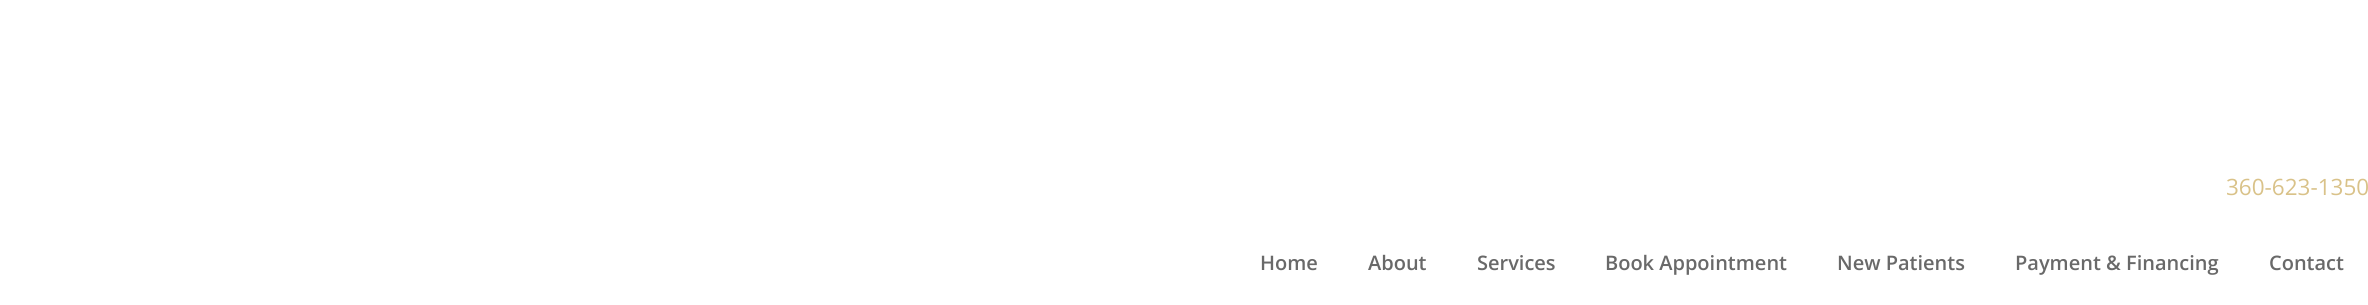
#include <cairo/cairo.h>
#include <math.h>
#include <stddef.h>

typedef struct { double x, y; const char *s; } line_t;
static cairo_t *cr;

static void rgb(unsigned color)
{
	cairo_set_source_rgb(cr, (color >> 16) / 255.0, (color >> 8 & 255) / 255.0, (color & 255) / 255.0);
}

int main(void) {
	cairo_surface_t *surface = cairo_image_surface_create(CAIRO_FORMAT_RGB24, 2368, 305);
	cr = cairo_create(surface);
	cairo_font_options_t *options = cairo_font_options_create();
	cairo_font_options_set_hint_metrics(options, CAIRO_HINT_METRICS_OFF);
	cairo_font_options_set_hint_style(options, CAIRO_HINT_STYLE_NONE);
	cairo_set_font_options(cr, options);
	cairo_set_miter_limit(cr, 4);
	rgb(0xffffff);
	cairo_paint(cr);
	cairo_select_font_face(cr, "Open Sans", CAIRO_FONT_SLANT_NORMAL, CAIRO_FONT_WEIGHT_NORMAL);
	cairo_set_font_size(cr, 22.5);
	rgb(0xd9c289);
	cairo_move_to(cr, 2226, 195);
	cairo_show_text(cr, "360-623-1350");
	cairo_select_font_face(cr, "Open Sans SemiBold", CAIRO_FONT_SLANT_NORMAL, CAIRO_FONT_WEIGHT_NORMAL);
	cairo_set_font_size(cr, 20);
	rgb(0x696969);
	{
		static const line_t items[] = {
			{1260, 270, "Home"},
			{1368, 270, "About"},
			{1477, 270, "Services"},
			{1605, 270, "Book Appointment"},
			{1837, 270, "New Patients"},
			{2015, 270, "Payment & Financing"},
			{2269, 270, "Contact"},
		};
		for (size_t i = 0; i < sizeof items / sizeof *items; i++) {
			cairo_move_to(cr, items[i].x, items[i].y);
			cairo_show_text(cr, items[i].s);
		}
	}
	cairo_surface_write_to_png(surface, "page.png");
	cairo_font_options_destroy(options);
	cairo_destroy(cr);
	cairo_surface_destroy(surface);
	return 0;
}
